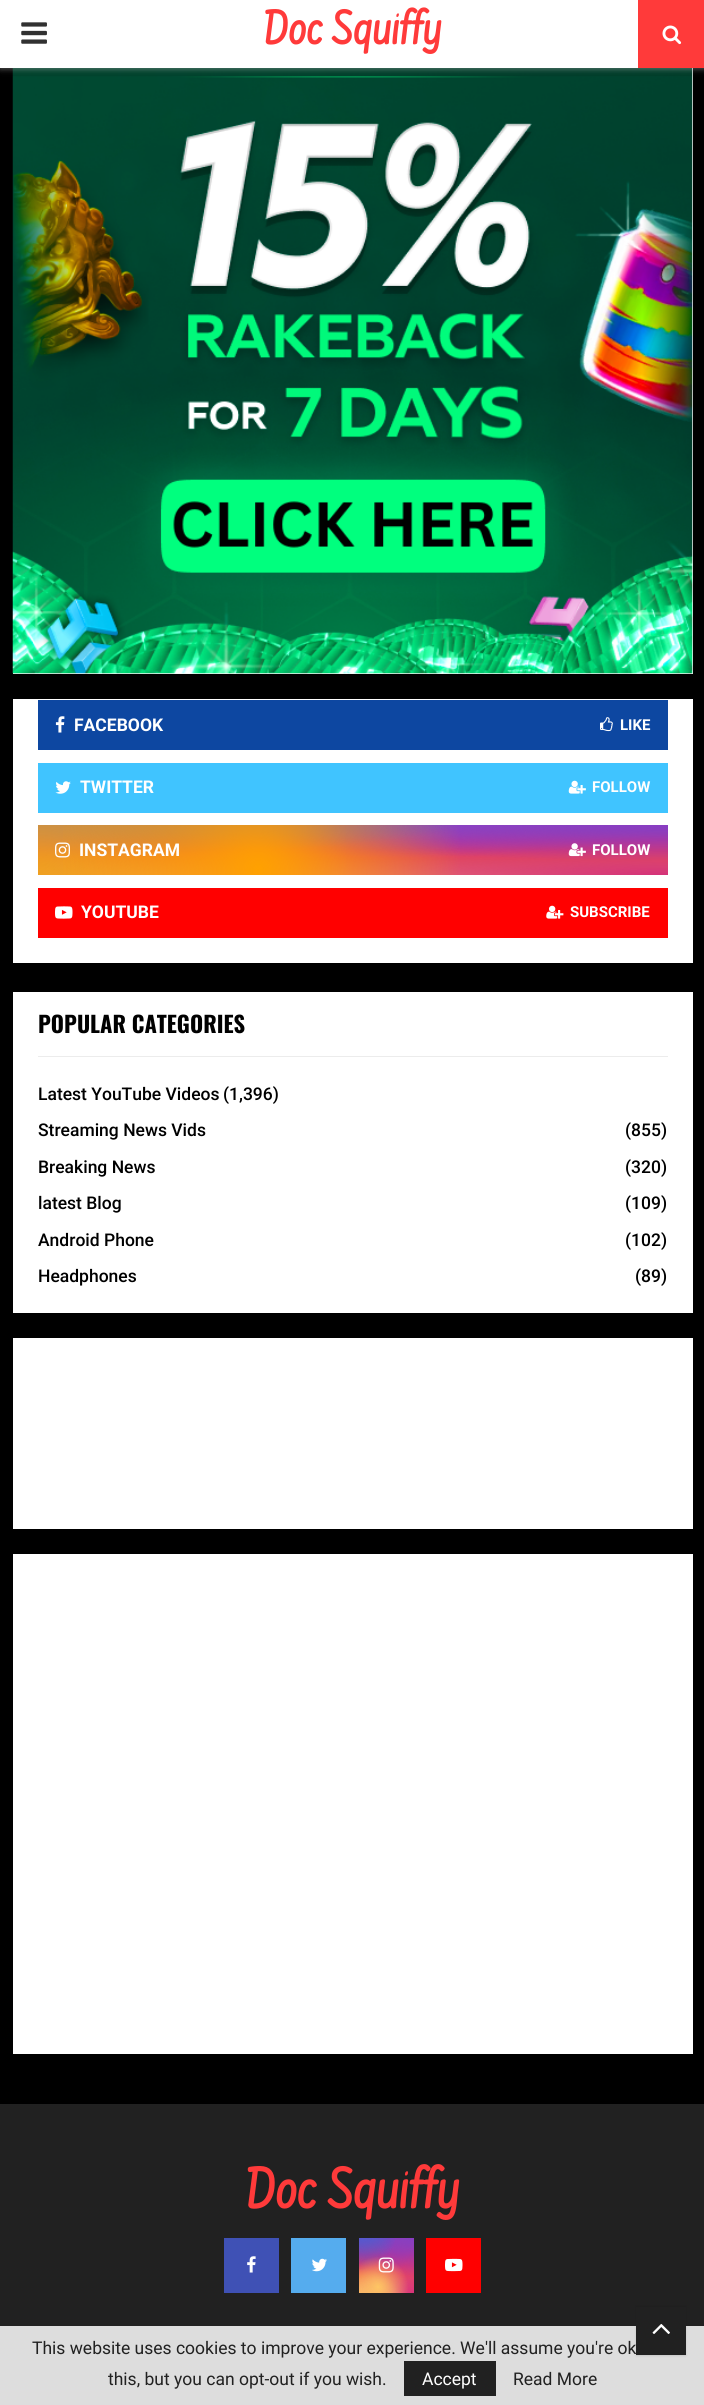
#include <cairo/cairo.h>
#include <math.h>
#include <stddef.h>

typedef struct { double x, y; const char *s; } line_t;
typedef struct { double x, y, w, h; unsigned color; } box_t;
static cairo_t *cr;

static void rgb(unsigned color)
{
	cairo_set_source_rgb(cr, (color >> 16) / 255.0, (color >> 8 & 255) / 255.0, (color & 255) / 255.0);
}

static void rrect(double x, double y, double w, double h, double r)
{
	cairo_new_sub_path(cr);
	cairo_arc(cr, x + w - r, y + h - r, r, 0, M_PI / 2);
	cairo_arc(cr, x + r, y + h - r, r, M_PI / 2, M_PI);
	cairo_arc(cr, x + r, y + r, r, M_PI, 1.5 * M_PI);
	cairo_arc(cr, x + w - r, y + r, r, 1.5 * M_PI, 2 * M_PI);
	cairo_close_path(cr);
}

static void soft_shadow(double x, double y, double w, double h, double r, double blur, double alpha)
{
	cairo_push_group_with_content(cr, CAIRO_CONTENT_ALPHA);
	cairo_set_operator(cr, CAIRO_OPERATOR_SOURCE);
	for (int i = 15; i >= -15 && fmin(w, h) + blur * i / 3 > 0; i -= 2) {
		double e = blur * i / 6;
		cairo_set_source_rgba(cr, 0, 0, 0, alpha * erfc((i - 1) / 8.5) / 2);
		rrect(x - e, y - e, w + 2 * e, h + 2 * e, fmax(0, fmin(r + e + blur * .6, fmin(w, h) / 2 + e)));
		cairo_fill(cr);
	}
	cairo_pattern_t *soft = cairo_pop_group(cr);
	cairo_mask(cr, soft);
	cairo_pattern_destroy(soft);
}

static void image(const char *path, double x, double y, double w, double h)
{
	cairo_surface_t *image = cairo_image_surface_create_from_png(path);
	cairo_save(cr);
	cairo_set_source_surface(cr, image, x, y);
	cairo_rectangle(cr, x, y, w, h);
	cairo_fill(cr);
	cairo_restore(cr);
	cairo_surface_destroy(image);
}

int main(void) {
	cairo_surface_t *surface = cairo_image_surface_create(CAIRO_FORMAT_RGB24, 704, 2405);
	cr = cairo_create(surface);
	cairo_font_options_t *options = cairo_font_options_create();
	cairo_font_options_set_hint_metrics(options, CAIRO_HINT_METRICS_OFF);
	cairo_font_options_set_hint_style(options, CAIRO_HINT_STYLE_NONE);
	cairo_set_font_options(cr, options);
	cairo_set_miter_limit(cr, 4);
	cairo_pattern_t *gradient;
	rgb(0x000000);
	cairo_paint(cr);
	gradient = cairo_pattern_create_linear(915, 334, -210, 334);
	cairo_pattern_add_color_stop_rgba(gradient, 0, 0.961, 0.961, 0.961, 1);
	cairo_pattern_add_color_stop_rgba(gradient, 0.15, 0.937, 0.937, 0.937, 1);
	cairo_pattern_add_color_stop_rgba(gradient, 0.4, 0.961, 0.961, 0.961, 1);
	cairo_pattern_add_color_stop_rgba(gradient, 1, 0.961, 0.961, 0.961, 1);
	cairo_set_source(cr, gradient);
	cairo_pattern_destroy(gradient);
	cairo_rectangle(cr, 13, 68, 680, 606);
	cairo_fill(cr);
	image("img/3.png", 12, 68, 681, 606);
	rgb(0xbebebe);
	soft_shadow(0, 1, 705, 68, 0, 3, 0.46);
	rgb(0xffffff);
	cairo_rectangle(cr, 0, 0, 638, 68);
	cairo_fill(cr);
	image("img/1.png", 21, 22, 26, 22);
	rgb(0xff3a3a);
	cairo_rectangle(cr, 638, 0, 66, 68);
	cairo_fill(cr);
	image("img/2.png", 662, 25, 20, 20);
	rgb(0xffffff);
	cairo_rectangle(cr, 13, 699, 680, 264);
	cairo_fill(cr);
	rgb(0x0d47a1);
	cairo_rectangle(cr, 38, 700, 630, 50);
	cairo_fill(cr);
	image("img/4.png", 55, 716, 10, 17);
	image("img/5.png", 600, 717, 13, 15);
	rgb(0x40c4ff);
	cairo_rectangle(cr, 38, 763, 630, 50);
	cairo_fill(cr);
	image("img/6.png", 55, 781, 16, 13);
	image("img/7.png", 568, 780, 18, 14);
	gradient = cairo_pattern_create_linear(353, 825, 353, 875);
	cairo_pattern_add_color_stop_rgba(gradient, 0, 0.396, 0.349, 0.792, 1);
	cairo_pattern_add_color_stop_rgba(gradient, 0.3, 0.737, 0.192, 0.561, 1);
	cairo_pattern_add_color_stop_rgba(gradient, 0.5, 0.89, 0.247, 0.373, 1);
	cairo_pattern_add_color_stop_rgba(gradient, 0.7, 0.969, 0.463, 0.22, 1);
	cairo_pattern_add_color_stop_rgba(gradient, 1, 0.996, 0.776, 0.427, 1);
	cairo_set_source(cr, gradient);
	cairo_pattern_destroy(gradient);
	cairo_rectangle(cr, 38, 825, 630, 50);
	cairo_fill(cr);
	gradient = cairo_pattern_create_radial(0, 0, 0, 0, 0, 1);
	cairo_pattern_set_matrix(gradient, &(cairo_matrix_t){1.0 / 891, 0, 0, 1.0 / 71, -1.0 * 668 / 891, -1.0 * 875 / 71});
	cairo_pattern_add_color_stop_rgba(gradient, 0, 0.831, 0.192, 0.471, 1);
	cairo_pattern_add_color_stop_rgba(gradient, 1, 0.831, 0.192, 0.471, 0);
	cairo_set_source(cr, gradient);
	cairo_pattern_destroy(gradient);
	cairo_rectangle(cr, 38, 825, 630, 50);
	cairo_fill(cr);
	gradient = cairo_pattern_create_radial(0, 0, 0, 0, 0, 1);
	cairo_pattern_set_matrix(gradient, &(cairo_matrix_t){1.0 / 535, 0, 0, 1.0 / 85, -1.0 * 416 / 535, -1.0 * 815 / 85});
	cairo_pattern_add_color_stop_rgba(gradient, 0, 0.561, 0.267, 0.78, 1);
	cairo_pattern_add_color_stop_rgba(gradient, 0.5, 0.561, 0.267, 0.78, 0);
	cairo_set_source(cr, gradient);
	cairo_pattern_destroy(gradient);
	cairo_rectangle(cr, 182, 825, 472, 32);
	cairo_fill(cr);
	gradient = cairo_pattern_create_radial(0, 0, 0, 0, 0, 1);
	cairo_pattern_set_matrix(gradient, &(cairo_matrix_t){1.0 / 891, 0, 0, 1.0 / 71, -1.0 * 668 / 891, -1.0 * 825 / 71});
	cairo_pattern_add_color_stop_rgba(gradient, 0, 0.537, 0.239, 0.761, 1);
	cairo_pattern_add_color_stop_rgba(gradient, 0.5, 0.537, 0.239, 0.761, 0);
	cairo_set_source(cr, gradient);
	cairo_pattern_destroy(gradient);
	cairo_rectangle(cr, 273, 825, 395, 35);
	cairo_fill(cr);
	gradient = cairo_pattern_create_radial(0, 0, 0, 0, 0, 1);
	cairo_pattern_set_matrix(gradient, &(cairo_matrix_t){1.0 / 713, 0, 0, 1.0 / 106, -1.0 * 164 / 713, -1.0 * 800 / 106});
	cairo_pattern_add_color_stop_rgba(gradient, 0, 0.322, 0.345, 0.812, 1);
	cairo_pattern_add_color_stop_rgba(gradient, 0.5, 0.322, 0.345, 0.812, 0);
	cairo_set_source(cr, gradient);
	cairo_pattern_destroy(gradient);
	cairo_rectangle(cr, 38, 825, 418, 27);
	cairo_fill(cr);
	gradient = cairo_pattern_create_radial(0, 0, 0, 0, 0, 1);
	cairo_pattern_set_matrix(gradient, &(cairo_matrix_t){1.0 / 891, 0, 0, 1.0 / 88, -1.0 * 38 / 891, -1.0 * 813 / 88});
	cairo_pattern_add_color_stop_rgba(gradient, 0, 0.322, 0.345, 0.812, 1);
	cairo_pattern_add_color_stop_rgba(gradient, 0.5, 0.322, 0.345, 0.812, 0);
	cairo_set_source(cr, gradient);
	cairo_pattern_destroy(gradient);
	cairo_rectangle(cr, 38, 825, 407, 31);
	cairo_fill(cr);
	gradient = cairo_pattern_create_radial(38, 895, 0, 38, 895, 634);
	cairo_pattern_add_color_stop_rgba(gradient, 0, 0.937, 0.631, 0.11, 1);
	cairo_pattern_add_color_stop_rgba(gradient, 0.5, 0.937, 0.631, 0.11, 0);
	cairo_set_source(cr, gradient);
	cairo_pattern_destroy(gradient);
	cairo_rectangle(cr, 38, 825, 308, 50);
	cairo_fill(cr);
	gradient = cairo_pattern_create_radial(258, 870, 0, 258, 870, 412);
	cairo_pattern_add_color_stop_rgba(gradient, 0, 1, 0.631, 0, 1);
	cairo_pattern_add_color_stop_rgba(gradient, 0.5, 1, 0.631, 0, 0);
	cairo_set_source(cr, gradient);
	cairo_pattern_destroy(gradient);
	cairo_rectangle(cr, 63, 825, 397, 50);
	cairo_fill(cr);
	image("img/8.png", 55, 842, 15, 16);
	image("img/9.png", 568, 843, 18, 14);
	rgb(0xff0000);
	cairo_rectangle(cr, 38, 888, 630, 50);
	cairo_fill(cr);
	image("img/10.png", 55, 906, 18, 13);
	image("img/11.png", 546, 905, 18, 14);
	{
		static const box_t items[] = {
			{13, 992, 680, 321, 0xffffff},
			{38, 1056, 630, 1, 0xececec},
			{13, 1338, 680, 191, 0xffffff},
			{13, 1554, 680, 500, 0xffffff},
			{0, 2104, 704, 222, 0x212121},
			{224, 2238, 55, 55, 0x3f51b5},
		};
		for (size_t i = 0; i < sizeof items / sizeof *items; i++) {
			rgb(items[i].color);
			cairo_rectangle(cr, items[i].x, items[i].y, items[i].w, items[i].h);
			cairo_fill(cr);
		}
	}
	image("img/12.png", 247, 2256, 9, 17);
	rgb(0x55acee);
	cairo_rectangle(cr, 291, 2238, 55, 55);
	cairo_fill(cr);
	image("img/13.png", 312, 2258, 15, 14);
	gradient = cairo_pattern_create_linear(386, 2238, 386, 2293);
	cairo_pattern_add_color_stop_rgba(gradient, 0, 0.396, 0.349, 0.792, 1);
	cairo_pattern_add_color_stop_rgba(gradient, 0.3, 0.737, 0.192, 0.561, 1);
	cairo_pattern_add_color_stop_rgba(gradient, 0.5, 0.89, 0.247, 0.373, 1);
	cairo_pattern_add_color_stop_rgba(gradient, 0.7, 0.969, 0.463, 0.22, 1);
	cairo_pattern_add_color_stop_rgba(gradient, 1, 0.996, 0.776, 0.427, 1);
	cairo_set_source(cr, gradient);
	cairo_pattern_destroy(gradient);
	cairo_rectangle(cr, 359, 2238, 55, 55);
	cairo_fill(cr);
	gradient = cairo_pattern_create_radial(414, 2293, 0, 414, 2293, 78);
	cairo_pattern_add_color_stop_rgba(gradient, 0, 0.851, 0.192, 0.478, 1);
	cairo_pattern_add_color_stop_rgba(gradient, 1, 0.851, 0.192, 0.478, 0);
	cairo_set_source(cr, gradient);
	cairo_pattern_destroy(gradient);
	cairo_rectangle(cr, 359, 2238, 55, 55);
	cairo_fill(cr);
	gradient = cairo_pattern_create_radial(0, 0, 0, 0, 0, 1);
	cairo_pattern_set_matrix(gradient, &(cairo_matrix_t){1.0 / 47, 0, 0, 1.0 / 93, -1.0 * 392 / 47, -1.0 * 2227 / 93});
	cairo_pattern_add_color_stop_rgba(gradient, 0, 0.537, 0.239, 0.761, 1);
	cairo_pattern_add_color_stop_rgba(gradient, 0.5, 0.537, 0.239, 0.761, 0);
	cairo_set_source(cr, gradient);
	cairo_pattern_destroy(gradient);
	cairo_rectangle(cr, 372, 2238, 40, 34);
	cairo_fill(cr);
	gradient = cairo_pattern_create_radial(414, 2238, 0, 414, 2238, 78);
	cairo_pattern_add_color_stop_rgba(gradient, 0, 0.537, 0.239, 0.761, 1);
	cairo_pattern_add_color_stop_rgba(gradient, 0.5, 0.537, 0.239, 0.761, 0);
	cairo_set_source(cr, gradient);
	cairo_pattern_destroy(gradient);
	cairo_rectangle(cr, 379, 2238, 35, 38);
	cairo_fill(cr);
	gradient = cairo_pattern_create_radial(0, 0, 0, 0, 0, 1);
	cairo_pattern_set_matrix(gradient, &(cairo_matrix_t){1.0 / 62, 0, 0, 1.0 / 117, -1.0 * 370 / 62, -1.0 * 2210 / 117});
	cairo_pattern_add_color_stop_rgba(gradient, 0, 0.322, 0.345, 0.812, 1);
	cairo_pattern_add_color_stop_rgba(gradient, 0.5, 0.322, 0.345, 0.812, 0);
	cairo_set_source(cr, gradient);
	cairo_pattern_destroy(gradient);
	cairo_rectangle(cr, 359, 2238, 36, 29);
	cairo_fill(cr);
	gradient = cairo_pattern_create_radial(0, 0, 0, 0, 0, 1);
	cairo_pattern_set_matrix(gradient, &(cairo_matrix_t){1.0 / 78, 0, 0, 1.0 / 97, -1.0 * 359 / 78, -1.0 * 2224 / 97});
	cairo_pattern_add_color_stop_rgba(gradient, 0, 0.322, 0.345, 0.812, 1);
	cairo_pattern_add_color_stop_rgba(gradient, 0.5, 0.322, 0.345, 0.812, 0);
	cairo_set_source(cr, gradient);
	cairo_pattern_destroy(gradient);
	cairo_rectangle(cr, 359, 2238, 36, 33);
	cairo_fill(cr);
	gradient = cairo_pattern_create_radial(359, 2315, 0, 359, 2315, 95);
	cairo_pattern_add_color_stop_rgba(gradient, 0, 0.996, 0.773, 0.392, 1);
	cairo_pattern_add_color_stop_rgba(gradient, 0.5, 0.996, 0.773, 0.392, 0);
	cairo_set_source(cr, gradient);
	cairo_pattern_destroy(gradient);
	cairo_rectangle(cr, 359, 2269, 41, 24);
	cairo_fill(cr);
	gradient = cairo_pattern_create_radial(378, 2287, 0, 378, 2287, 61);
	cairo_pattern_add_color_stop_rgba(gradient, 0, 0.996, 0.773, 0.392, 1);
	cairo_pattern_add_color_stop_rgba(gradient, 0.5, 0.996, 0.773, 0.392, 0);
	cairo_set_source(cr, gradient);
	cairo_pattern_destroy(gradient);
	cairo_rectangle(cr, 359, 2257, 49, 36);
	cairo_fill(cr);
	image("img/14.png", 378, 2257, 16, 16);
	rgb(0xff0000);
	cairo_rectangle(cr, 426, 2238, 55, 55);
	cairo_fill(cr);
	image("img/15.png", 445, 2258, 18, 14);
	rgb(0xdddddd);
	cairo_rectangle(cr, 0, 2326, 704, 79);
	cairo_fill(cr);
	rgb(0x212121);
	cairo_rectangle(cr, 404, 2361, 92, 35);
	cairo_fill(cr);
	rgb(0x000000);
	soft_shadow(636, 2306, 50, 50, 0, 1, 0.1);
	rgb(0x212121);
	cairo_rectangle(cr, 636, 2307, 50, 48);
	cairo_fill(cr);
	image("img/16.png", 652, 2324, 18, 10);
	cairo_select_font_face(cr, "Farsan", CAIRO_FONT_SLANT_NORMAL, CAIRO_FONT_WEIGHT_BOLD);
	cairo_set_font_size(cr, 50);
	rgb(0xff3a3a);
	cairo_move_to(cr, 263, 44);
	cairo_show_text(cr, "Doc Squiffy");
	cairo_select_font_face(cr, "Roboto", CAIRO_FONT_SLANT_NORMAL, CAIRO_FONT_WEIGHT_BOLD);
	cairo_set_font_size(cr, 17.5);
	rgb(0xffffff);
	cairo_move_to(cr, 74, 731);
	cairo_show_text(cr, "FACEBOOK");
	cairo_set_font_size(cr, 15);
	cairo_move_to(cr, 620, 730);
	cairo_show_text(cr, "LIKE");
	cairo_set_font_size(cr, 17.5);
	cairo_move_to(cr, 80, 793);
	cairo_show_text(cr, "TWITTER");
	cairo_set_font_size(cr, 15);
	cairo_move_to(cr, 592, 792);
	cairo_show_text(cr, "FOLLOW");
	cairo_set_font_size(cr, 17.5);
	cairo_move_to(cr, 79, 856);
	cairo_show_text(cr, "INSTAGRAM");
	cairo_set_font_size(cr, 15);
	cairo_move_to(cr, 592, 855);
	cairo_show_text(cr, "FOLLOW");
	cairo_set_font_size(cr, 17.5);
	cairo_move_to(cr, 81, 918);
	cairo_show_text(cr, "YOUTUBE");
	cairo_set_font_size(cr, 15);
	cairo_move_to(cr, 570, 917);
	cairo_show_text(cr, "SUBSCRIBE");
	cairo_select_font_face(cr, "Oswald", CAIRO_FONT_SLANT_NORMAL, CAIRO_FONT_WEIGHT_BOLD);
	cairo_set_font_size(cr, 22.5);
	rgb(0x000000);
	cairo_move_to(cr, 38, 1033);
	cairo_show_text(cr, "POPULAR CATEGORIES");
	cairo_select_font_face(cr, "Roboto Medium", CAIRO_FONT_SLANT_NORMAL, CAIRO_FONT_WEIGHT_NORMAL);
	cairo_set_font_size(cr, 17.5);
	{
		static const line_t items[] = {
			{38, 1100, "Latest YouTube Videos"},
			{223, 1100, "(1,396)"},
			{38, 1136, "Streaming News Vids"},
			{625, 1136, "(855)"},
			{38, 1173, "Breaking News"},
			{625, 1173, "(320)"},
			{38, 1209, "latest Blog"},
			{625, 1209, "(109)"},
			{38, 1246, "Android Phone"},
			{625, 1246, "(102)"},
			{38, 1282, "Headphones"},
			{635, 1282, "(89)"},
		};
		for (size_t i = 0; i < sizeof items / sizeof *items; i++) {
			cairo_move_to(cr, items[i].x, items[i].y);
			cairo_show_text(cr, items[i].s);
		}
	}
	cairo_select_font_face(cr, "Farsan", CAIRO_FONT_SLANT_NORMAL, CAIRO_FONT_WEIGHT_BOLD);
	cairo_set_font_size(cr, 60);
	rgb(0xff3a3a);
	cairo_move_to(cr, 245, 2208);
	cairo_show_text(cr, "Doc Squiffy");
	cairo_select_font_face(cr, "Roboto", CAIRO_FONT_SLANT_NORMAL, CAIRO_FONT_WEIGHT_NORMAL);
	cairo_set_font_size(cr, 17.5);
	rgb(0x212121);
	cairo_move_to(cr, 32, 2354);
	cairo_show_text(cr, "This website uses cookies to improve your experience. We'll assume you're ok");
	cairo_move_to(cr, 108, 2385);
	cairo_show_text(cr, "this, but you can opt-out if you wish.");
	rgb(0xffffff);
	cairo_move_to(cr, 422, 2385);
	cairo_show_text(cr, "Accept");
	rgb(0x212121);
	cairo_move_to(cr, 513, 2385);
	cairo_show_text(cr, "Read More");
	cairo_surface_write_to_png(surface, "page.png");
	cairo_font_options_destroy(options);
	cairo_destroy(cr);
	cairo_surface_destroy(surface);
	return 0;
}
